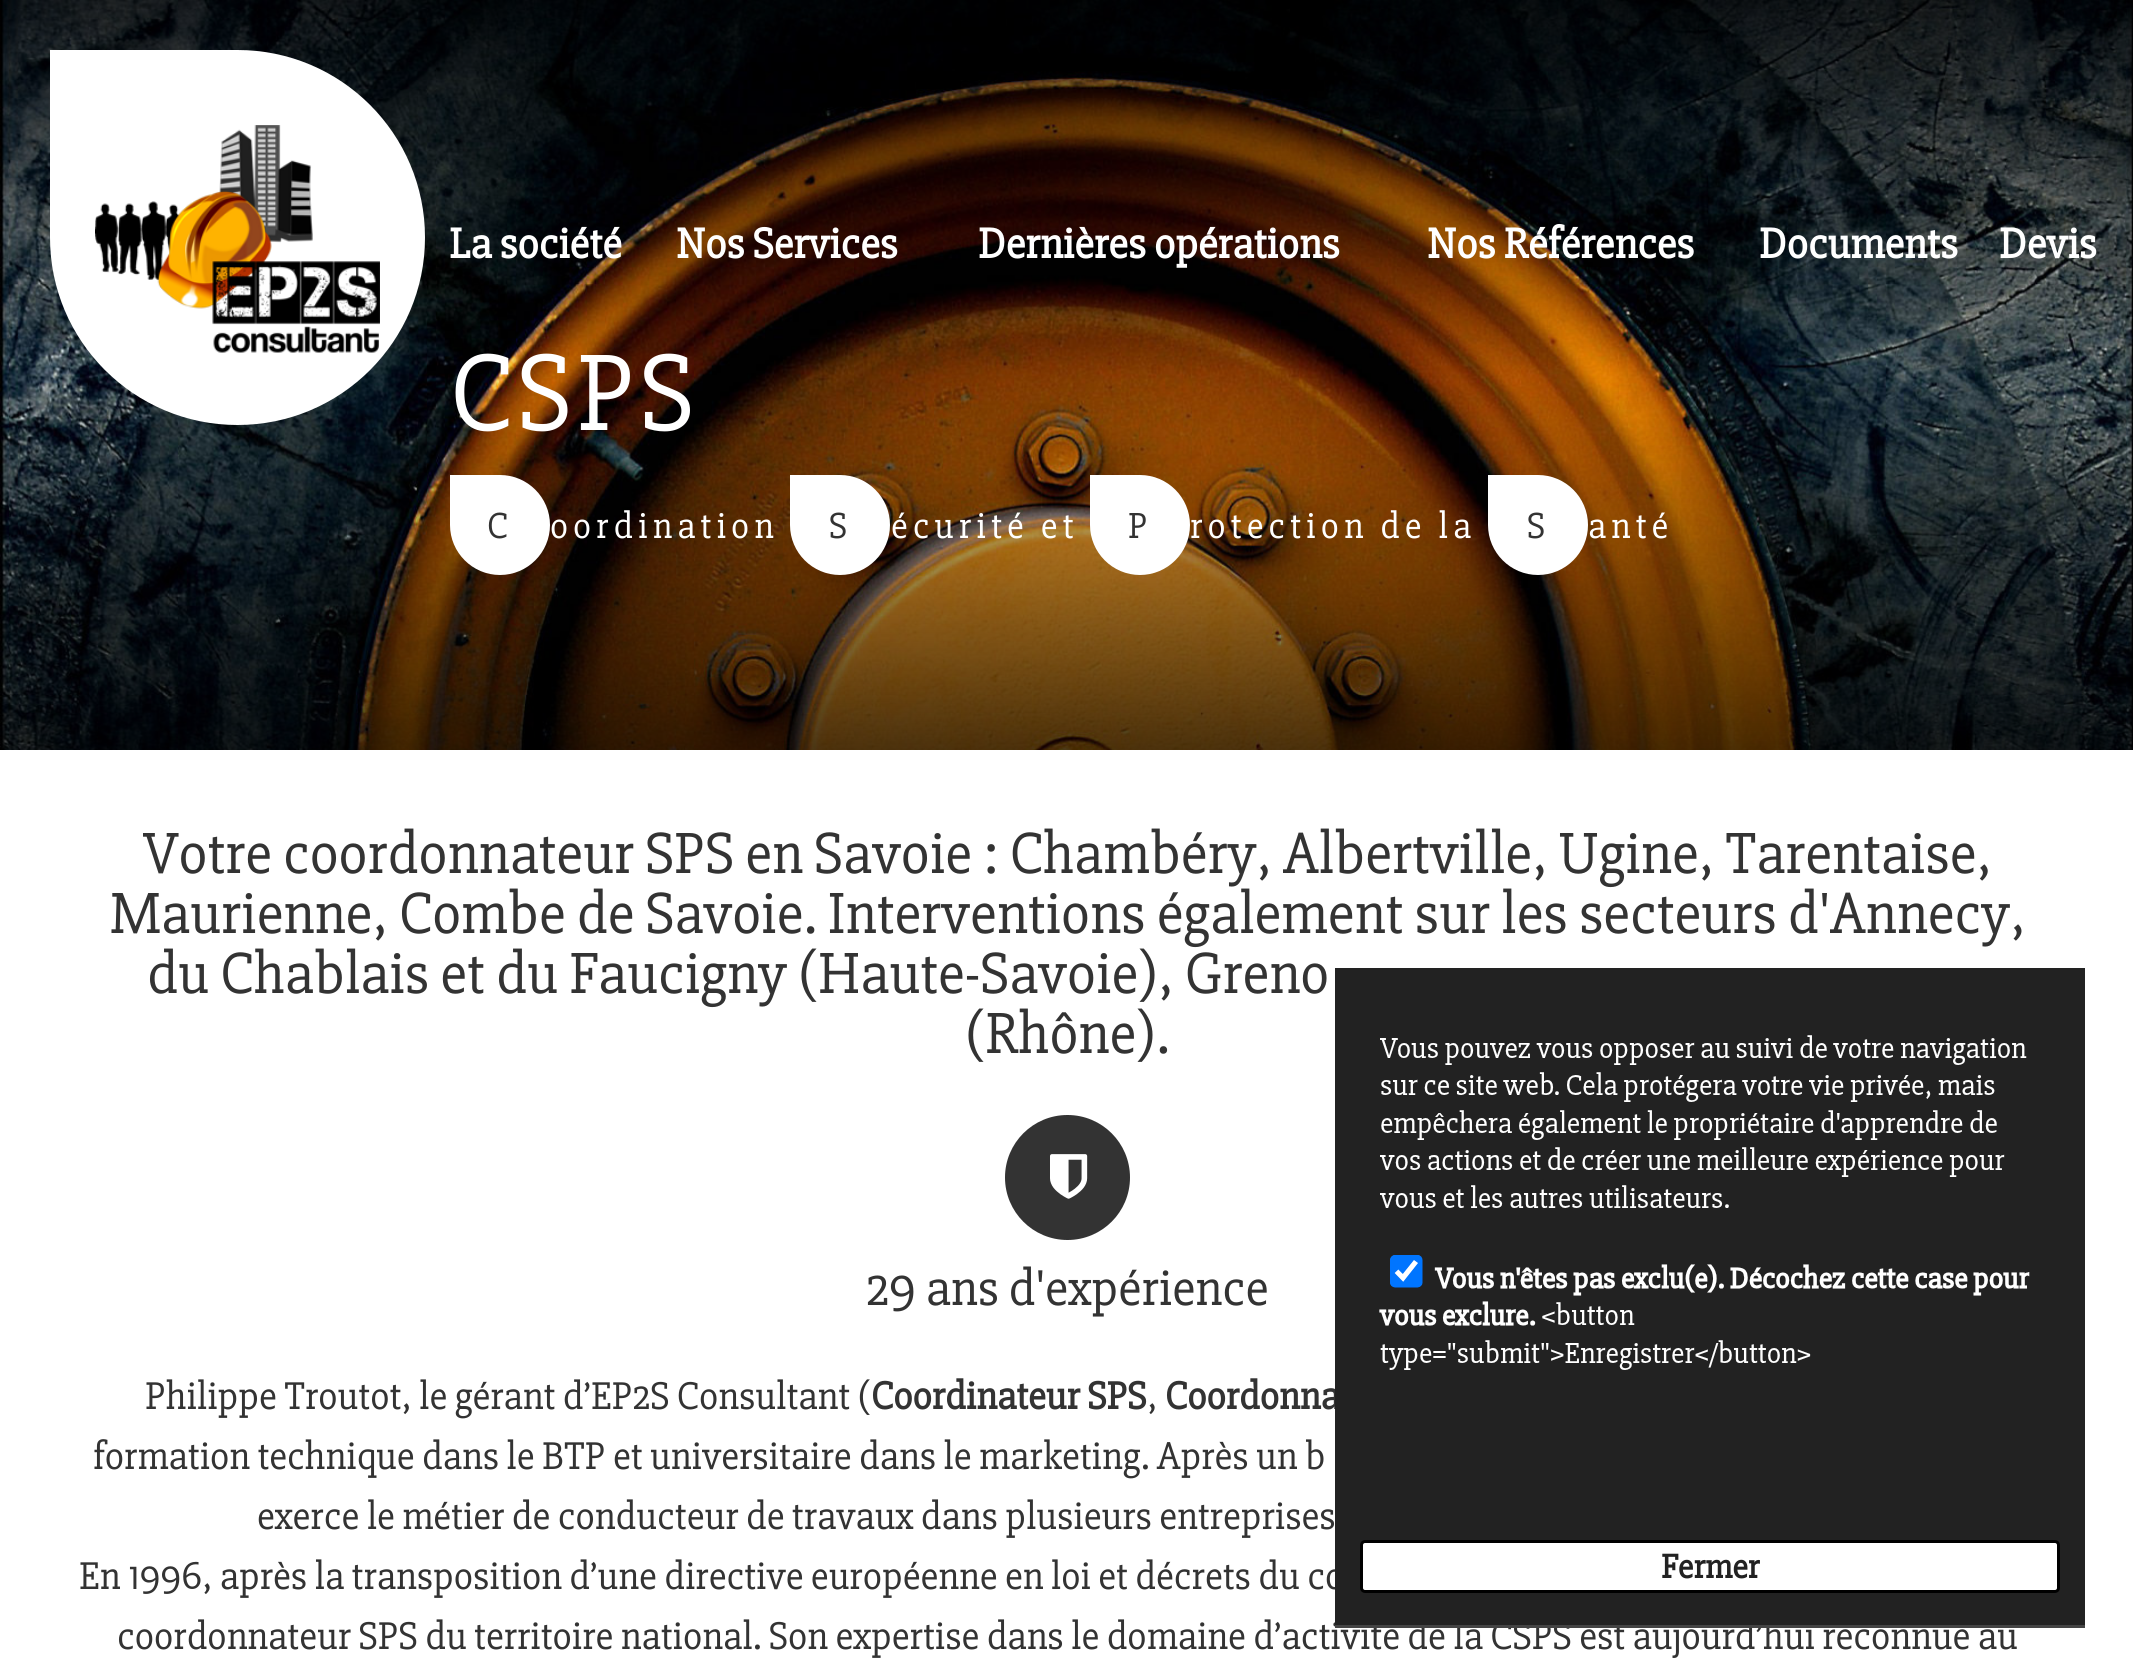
#include <cairo/cairo.h>
#include <math.h>
#include <stddef.h>

typedef struct { double x, y; const char *s; } line_t;
static cairo_t *cr;

static void rgb(unsigned color)
{
	cairo_set_source_rgb(cr, (color >> 16) / 255.0, (color >> 8 & 255) / 255.0, (color & 255) / 255.0);
}

static void tracked(double x, double y, const char *s, double letter, double word)
{
	cairo_move_to(cr, x, y);
	while (*s) {
		char ch[5] = {0};
		int n = 0;
		do ch[n++] = *s++; while ((*s & 0xC0) == 0x80);
		cairo_show_text(cr, ch);
		cairo_rel_move_to(cr, letter + word * (*ch == ' '), 0);
	}
}

static void rrect(double x, double y, double w, double h, double r)
{
	cairo_new_sub_path(cr);
	cairo_arc(cr, x + w - r, y + h - r, r, 0, M_PI / 2);
	cairo_arc(cr, x + r, y + h - r, r, M_PI / 2, M_PI);
	cairo_arc(cr, x + r, y + r, r, M_PI, 1.5 * M_PI);
	cairo_arc(cr, x + w - r, y + r, r, 1.5 * M_PI, 2 * M_PI);
	cairo_close_path(cr);
}

static void image(const char *path, double x, double y, double w, double h)
{
	cairo_surface_t *image = cairo_image_surface_create_from_png(path);
	cairo_save(cr);
	cairo_set_source_surface(cr, image, x, y);
	cairo_rectangle(cr, x, y, w, h);
	cairo_fill(cr);
	cairo_restore(cr);
	cairo_surface_destroy(image);
}

int main(void) {
	cairo_surface_t *surface = cairo_image_surface_create(CAIRO_FORMAT_RGB24, 2133, 1676);
	cr = cairo_create(surface);
	cairo_font_options_t *options = cairo_font_options_create();
	cairo_font_options_set_hint_metrics(options, CAIRO_HINT_METRICS_OFF);
	cairo_font_options_set_hint_style(options, CAIRO_HINT_STYLE_NONE);
	cairo_set_font_options(cr, options);
	cairo_set_miter_limit(cr, 4);
	rgb(0xffffff);
	cairo_paint(cr);
	image("img/1.png", 0, 0, 2133, 750);
	rgb(0xffffff);
	cairo_new_path(cr);
	cairo_move_to(cr, 50, 50);
	cairo_line_to(cr, 237.5, 50);
	cairo_curve_to(cr, 341, 50, 425, 134, 425, 237.5);
	cairo_curve_to(cr, 425, 341, 341, 425, 237.5, 425);
	cairo_curve_to(cr, 134, 425, 50, 341, 50, 237.5);
	cairo_close_path(cr);
	cairo_fill(cr);
	image("img/2.png", 95, 125, 285, 228);
	cairo_new_path(cr);
	cairo_move_to(cr, 450, 475);
	cairo_line_to(cr, 500, 475);
	cairo_curve_to(cr, 527.5, 475, 550, 497.5, 550, 525);
	cairo_curve_to(cr, 550, 552.5, 527.5, 575, 500, 575);
	cairo_curve_to(cr, 472.5, 575, 450, 552.5, 450, 525);
	cairo_close_path(cr);
	cairo_fill(cr);
	cairo_new_path(cr);
	cairo_move_to(cr, 790, 475);
	cairo_line_to(cr, 840, 475);
	cairo_curve_to(cr, 867.5, 475, 890, 497.5, 890, 525);
	cairo_curve_to(cr, 890, 552.5, 867.5, 575, 840, 575);
	cairo_curve_to(cr, 812.5, 575, 790, 552.5, 790, 525);
	cairo_close_path(cr);
	cairo_fill(cr);
	cairo_new_path(cr);
	cairo_move_to(cr, 1090, 475);
	cairo_line_to(cr, 1140, 475);
	cairo_curve_to(cr, 1167.5, 475, 1190, 497.5, 1190, 525);
	cairo_curve_to(cr, 1190, 552.5, 1167.5, 575, 1140, 575);
	cairo_curve_to(cr, 1112.5, 575, 1090, 552.5, 1090, 525);
	cairo_close_path(cr);
	cairo_fill(cr);
	cairo_new_path(cr);
	cairo_move_to(cr, 1488, 475);
	cairo_line_to(cr, 1538, 475);
	cairo_curve_to(cr, 1565.5, 475, 1588, 497.5, 1588, 525);
	cairo_curve_to(cr, 1588, 552.5, 1565.5, 575, 1538, 575);
	cairo_curve_to(cr, 1510.5, 575, 1488, 552.5, 1488, 525);
	cairo_close_path(cr);
	cairo_fill(cr);
	rgb(0x333333);
	cairo_arc(cr, 1067.5, 1177.5, 62.5, 0, 2 * M_PI);
	cairo_fill(cr);
	image("img/3.png", 1050, 1154, 38, 45);
	cairo_select_font_face(cr, "Slabo 27px", CAIRO_FONT_SLANT_NORMAL, CAIRO_FONT_WEIGHT_BOLD);
	cairo_set_font_size(cr, 44);
	rgb(0xffffff);
	{
		static const line_t items[] = {
			{449, 258, "La société"},
			{676, 258, "Nos Services"},
			{978, 258, "Dernières opérations"},
			{1427, 258, "Nos Références"},
			{1759, 258, "Documents"},
			{1999, 258, "Devis"},
		};
		for (size_t i = 0; i < sizeof items / sizeof *items; i++) {
			cairo_move_to(cr, items[i].x, items[i].y);
			cairo_show_text(cr, items[i].s);
		}
	}
	cairo_select_font_face(cr, "Slabo 27px", CAIRO_FONT_SLANT_NORMAL, CAIRO_FONT_WEIGHT_NORMAL);
	cairo_set_font_size(cr, 112.5);
	tracked(450, 430, "CSPS", 5, 0);
	cairo_set_font_size(cr, 37.5);
	rgb(0x333333);
	tracked(487, 538, "C", 5, 0);
	rgb(0xffffff);
	tracked(550, 538, "oordination", 5, 0);
	rgb(0x333333);
	tracked(829, 538, "S", 5, 0);
	rgb(0xffffff);
	tracked(891, 538, "écurité et", 5, 0);
	rgb(0x333333);
	tracked(1128, 538, "P", 5, 0);
	rgb(0xffffff);
	tracked(1190, 538, "rotection de la", 5, 0);
	rgb(0x333333);
	tracked(1527, 538, "S", 5, 0);
	rgb(0xffffff);
	tracked(1588, 538, "anté", 5, 0);
	cairo_set_font_size(cr, 60);
	rgb(0x333333);
	{
		static const line_t items[] = {
			{143, 873, "Votre coordonnateur SPS en Savoie : Chambéry, Albertville, Ugine, Tarentaise,"},
			{110, 933, "Maurienne, Combe de Savoie. Interventions également sur les secteurs d'Annecy,"},
			{147, 993, "du Chablais et du Faucigny (Haute-Savoie), Greno"},
			{965, 1053, "(Rhône)."},
		};
		for (size_t i = 0; i < sizeof items / sizeof *items; i++) {
			cairo_move_to(cr, items[i].x, items[i].y);
			cairo_show_text(cr, items[i].s);
		}
	}
	cairo_set_font_size(cr, 52);
	cairo_move_to(cr, 866, 1305);
	cairo_show_text(cr, "29 ans d'expérience");
	cairo_set_font_size(cr, 40);
	cairo_move_to(cr, 145, 1409);
	cairo_show_text(cr, "Philippe Troutot, le gérant d’EP2S Consultant (");
	cairo_select_font_face(cr, "Slabo 27px", CAIRO_FONT_SLANT_NORMAL, CAIRO_FONT_WEIGHT_BOLD);
	cairo_move_to(cr, 871, 1409);
	cairo_show_text(cr, "Coordinateur SPS");
	cairo_select_font_face(cr, "Slabo 27px", CAIRO_FONT_SLANT_NORMAL, CAIRO_FONT_WEIGHT_NORMAL);
	cairo_move_to(cr, 1147, 1409);
	cairo_show_text(cr, ",");
	cairo_select_font_face(cr, "Slabo 27px", CAIRO_FONT_SLANT_NORMAL, CAIRO_FONT_WEIGHT_BOLD);
	cairo_move_to(cr, 1165, 1409);
	cairo_show_text(cr, "Coordonna");
	cairo_select_font_face(cr, "Slabo 27px", CAIRO_FONT_SLANT_NORMAL, CAIRO_FONT_WEIGHT_NORMAL);
	{
		static const line_t items[] = {
			{93, 1469, "formation technique dans le BTP et universitaire dans le marketing. Après un b"},
			{257, 1529, "exerce le métier de conducteur de travaux dans plusieurs entreprises"},
			{79, 1589, "En 1996, après la transposition d’une directive européenne en loi et décrets du co"},
			{117, 1649, "coordonnateur SPS du territoire national. Son expertise dans le domaine d’activité de la CSPS est aujourd’hui reconnue au"},
		};
		for (size_t i = 0; i < sizeof items / sizeof *items; i++) {
			cairo_move_to(cr, items[i].x, items[i].y);
			cairo_show_text(cr, items[i].s);
		}
	}
	rgb(0x222222);
	cairo_rectangle(cr, 1335, 968, 750, 657);
	cairo_fill(cr);
	rgb(0x444444);
	cairo_rectangle(cr, 1335, 1625, 750, 3);
	cairo_fill(cr);
	image("img/4.png", 1379, 1035, 651, 335);
	rgb(0xffffff);
	rrect(1361.5, 1541.5, 697, 50, 3.5);
	cairo_fill_preserve(cr);
	rgb(0x000000);
	cairo_set_line_width(cr, 3);
	cairo_stroke(cr);
	cairo_select_font_face(cr, "Slabo 27px", CAIRO_FONT_SLANT_NORMAL, CAIRO_FONT_WEIGHT_BOLD);
	cairo_set_font_size(cr, 35);
	rgb(0x222222);
	cairo_move_to(cr, 1661, 1578);
	cairo_show_text(cr, "Fermer");
	cairo_surface_write_to_png(surface, "page.png");
	cairo_font_options_destroy(options);
	cairo_destroy(cr);
	cairo_surface_destroy(surface);
	return 0;
}
